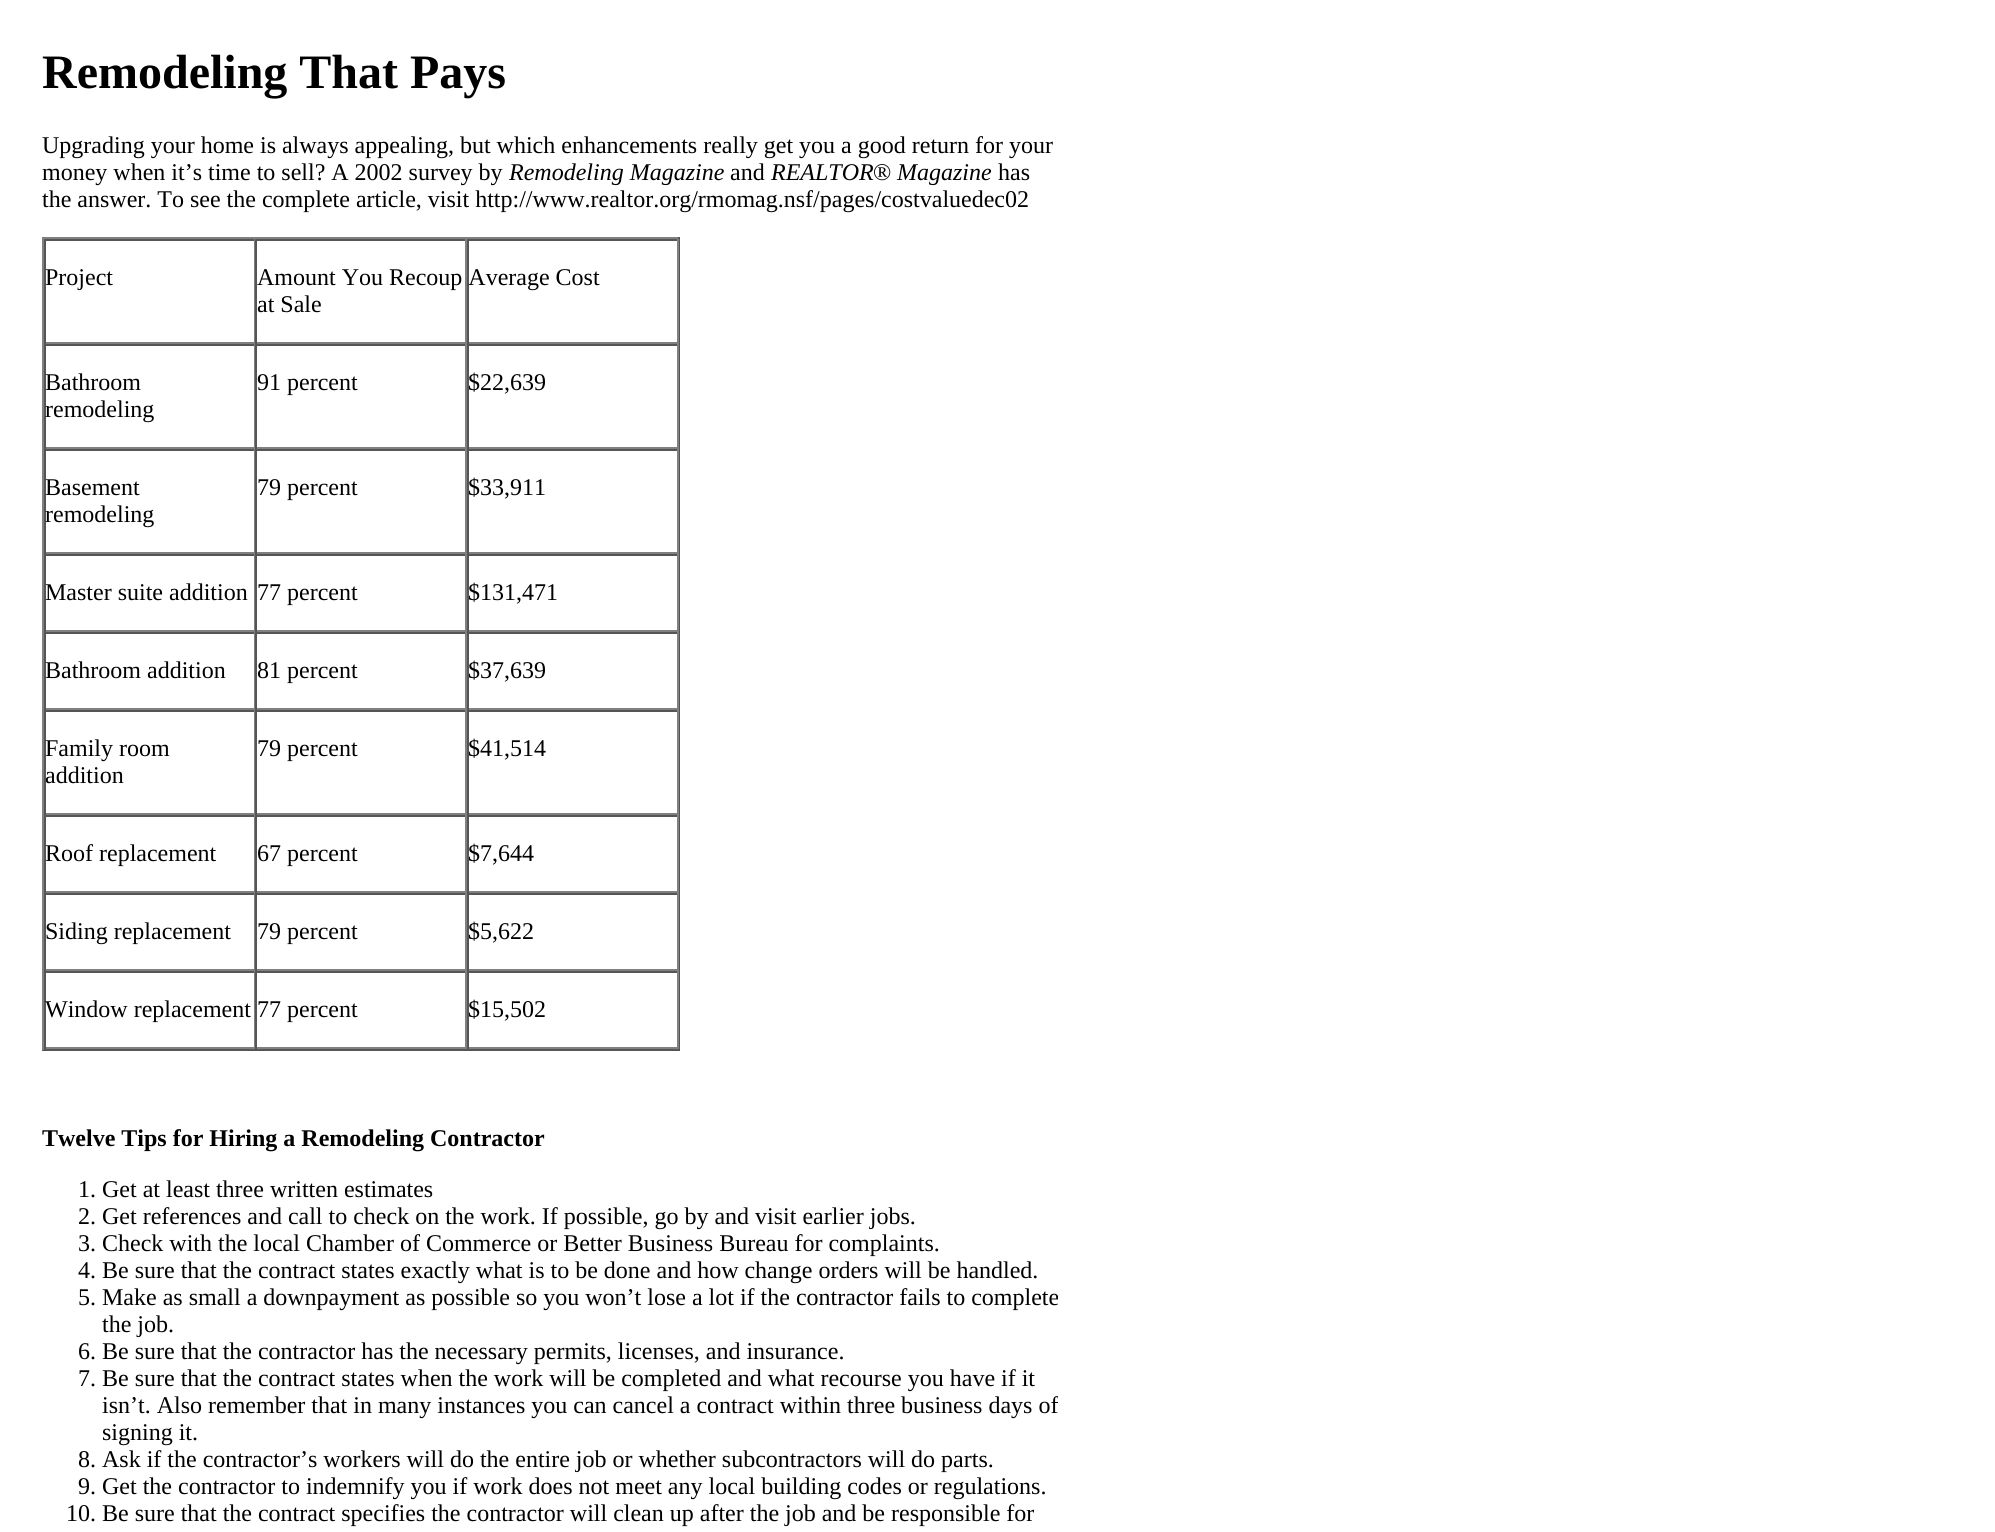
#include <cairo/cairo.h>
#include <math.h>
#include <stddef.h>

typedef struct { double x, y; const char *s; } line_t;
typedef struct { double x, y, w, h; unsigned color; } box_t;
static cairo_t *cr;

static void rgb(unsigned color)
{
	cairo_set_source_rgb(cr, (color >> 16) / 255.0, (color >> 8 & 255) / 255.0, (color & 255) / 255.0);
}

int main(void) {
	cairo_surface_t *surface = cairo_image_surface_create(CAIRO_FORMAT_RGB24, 1995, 1532);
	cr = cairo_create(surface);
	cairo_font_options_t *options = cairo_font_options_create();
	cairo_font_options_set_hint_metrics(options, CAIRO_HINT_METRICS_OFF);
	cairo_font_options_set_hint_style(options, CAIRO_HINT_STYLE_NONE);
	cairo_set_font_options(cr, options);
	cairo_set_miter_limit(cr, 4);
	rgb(0xffffff);
	cairo_paint(cr);
	{
		static const box_t items[] = {
			{42, 237, 638, 2, 0x808080},
			{678, 237, 2, 813, 0x555555},
			{42, 1049, 638, 2, 0x555555},
			{42, 237, 2, 813, 0x808080},
			{44, 239, 634, 2, 0x555555},
			{254, 239, 1, 105, 0x808080},
			{44, 342, 211, 2, 0x808080},
			{44, 239, 2, 105, 0x555555},
			{677, 239, 2, 105, 0x808080},
			{467, 342, 211, 2, 0x808080},
			{467, 239, 2, 105, 0x555555},
			{465, 239, 2, 105, 0x808080},
			{255, 342, 212, 2, 0x808080},
			{255, 239, 2, 105, 0x555555},
			{44, 344, 634, 2, 0x555555},
			{254, 344, 1, 105, 0x808080},
			{44, 447, 211, 2, 0x808080},
			{44, 344, 2, 105, 0x555555},
			{465, 344, 2, 105, 0x808080},
			{255, 447, 212, 2, 0x808080},
			{255, 344, 2, 105, 0x555555},
			{677, 344, 2, 105, 0x808080},
			{467, 447, 211, 2, 0x808080},
			{467, 344, 2, 105, 0x555555},
			{44, 449, 634, 2, 0x555555},
			{254, 449, 1, 105, 0x808080},
			{44, 552, 211, 2, 0x808080},
			{44, 449, 2, 105, 0x555555},
			{465, 449, 2, 105, 0x808080},
			{255, 552, 212, 2, 0x808080},
			{255, 449, 2, 105, 0x555555},
			{677, 449, 2, 105, 0x808080},
			{467, 552, 211, 2, 0x808080},
			{467, 449, 2, 105, 0x555555},
			{44, 554, 634, 2, 0x555555},
			{254, 554, 1, 78, 0x808080},
			{44, 630, 211, 2, 0x808080},
			{44, 554, 2, 78, 0x555555},
			{465, 554, 2, 78, 0x808080},
			{255, 630, 212, 2, 0x808080},
			{255, 554, 2, 78, 0x555555},
			{677, 554, 2, 78, 0x808080},
			{467, 630, 211, 2, 0x808080},
			{467, 554, 2, 78, 0x555555},
			{44, 632, 634, 2, 0x555555},
			{254, 632, 1, 78, 0x808080},
			{44, 708, 211, 2, 0x808080},
			{44, 632, 2, 78, 0x555555},
			{465, 632, 2, 78, 0x808080},
			{255, 708, 212, 2, 0x808080},
			{255, 632, 2, 78, 0x555555},
			{677, 632, 2, 78, 0x808080},
			{467, 708, 211, 2, 0x808080},
			{467, 632, 2, 78, 0x555555},
			{44, 710, 634, 2, 0x555555},
			{254, 710, 1, 105, 0x808080},
			{44, 813, 211, 2, 0x808080},
			{44, 710, 2, 105, 0x555555},
			{465, 710, 2, 105, 0x808080},
			{255, 813, 212, 2, 0x808080},
			{255, 710, 2, 105, 0x555555},
			{677, 710, 2, 105, 0x808080},
			{467, 813, 211, 2, 0x808080},
			{467, 710, 2, 105, 0x555555},
			{44, 815, 634, 2, 0x555555},
			{254, 815, 1, 78, 0x808080},
			{44, 891, 211, 2, 0x808080},
			{44, 815, 2, 78, 0x555555},
			{465, 815, 2, 78, 0x808080},
			{255, 891, 212, 2, 0x808080},
			{255, 815, 2, 78, 0x555555},
			{677, 815, 2, 78, 0x808080},
			{467, 891, 211, 2, 0x808080},
			{467, 815, 2, 78, 0x555555},
			{44, 893, 634, 2, 0x555555},
			{254, 893, 1, 78, 0x808080},
			{44, 969, 211, 2, 0x808080},
			{44, 893, 2, 78, 0x555555},
			{465, 893, 2, 78, 0x808080},
			{255, 969, 212, 2, 0x808080},
			{255, 893, 2, 78, 0x555555},
			{677, 893, 2, 78, 0x808080},
			{467, 969, 211, 2, 0x808080},
			{467, 893, 2, 78, 0x555555},
			{44, 971, 634, 2, 0x555555},
			{254, 971, 1, 78, 0x808080},
			{44, 1047, 211, 2, 0x808080},
			{44, 971, 2, 78, 0x555555},
			{465, 971, 2, 78, 0x808080},
			{255, 1047, 212, 2, 0x808080},
			{255, 971, 2, 78, 0x555555},
			{677, 971, 2, 78, 0x808080},
			{467, 1047, 211, 2, 0x808080},
			{467, 971, 2, 78, 0x555555},
		};
		for (size_t i = 0; i < sizeof items / sizeof *items; i++) {
			rgb(items[i].color);
			cairo_rectangle(cr, items[i].x, items[i].y, items[i].w, items[i].h);
			cairo_fill(cr);
		}
	}
	cairo_select_font_face(cr, "Liberation Serif", CAIRO_FONT_SLANT_NORMAL, CAIRO_FONT_WEIGHT_BOLD);
	cairo_set_font_size(cr, 48);
	rgb(0x000000);
	cairo_move_to(cr, 42, 88);
	cairo_show_text(cr, "Remodeling That Pays");
	cairo_select_font_face(cr, "Liberation Serif", CAIRO_FONT_SLANT_NORMAL, CAIRO_FONT_WEIGHT_NORMAL);
	cairo_set_font_size(cr, 24);
	cairo_move_to(cr, 42, 153);
	cairo_show_text(cr, "Upgrading your home is always appealing, but which enhancements really get you a good return for your");
	cairo_move_to(cr, 42, 180);
	cairo_show_text(cr, "money when it’s time to sell? A 2002 survey by");
	cairo_select_font_face(cr, "Liberation Serif", CAIRO_FONT_SLANT_ITALIC, CAIRO_FONT_WEIGHT_NORMAL);
	cairo_move_to(cr, 509, 180);
	cairo_show_text(cr, "Remodeling Magazine");
	cairo_select_font_face(cr, "Liberation Serif", CAIRO_FONT_SLANT_NORMAL, CAIRO_FONT_WEIGHT_NORMAL);
	cairo_move_to(cr, 730, 180);
	cairo_show_text(cr, "and");
	cairo_select_font_face(cr, "Liberation Serif", CAIRO_FONT_SLANT_ITALIC, CAIRO_FONT_WEIGHT_NORMAL);
	cairo_move_to(cr, 771, 180);
	cairo_show_text(cr, "REALTOR");
	cairo_select_font_face(cr, "Liberation Serif", CAIRO_FONT_SLANT_NORMAL, CAIRO_FONT_WEIGHT_NORMAL);
	cairo_move_to(cr, 873, 180);
	cairo_show_text(cr, "®");
	cairo_select_font_face(cr, "Liberation Serif", CAIRO_FONT_SLANT_ITALIC, CAIRO_FONT_WEIGHT_NORMAL);
	cairo_move_to(cr, 897, 180);
	cairo_show_text(cr, "Magazine");
	cairo_select_font_face(cr, "Liberation Serif", CAIRO_FONT_SLANT_NORMAL, CAIRO_FONT_WEIGHT_NORMAL);
	{
		static const line_t items[] = {
			{998, 180, "has"},
			{42, 207, "the answer. To see the complete article, visit http://www.realtor.org/rmomag.nsf/pages/costvaluedec02"},
			{45, 285, "Project"},
			{257, 285, "Amount You Recoup Average Cost"},
			{257, 312, "at Sale"},
			{45, 390, "Bathroom"},
			{45, 417, "remodeling"},
			{257, 390, "91 percent"},
			{468, 390, "$22,639"},
			{45, 495, "Basement"},
			{45, 522, "remodeling"},
			{257, 495, "79 percent"},
			{468, 495, "$33,911"},
			{45, 600, "Master suite addition"},
			{257, 600, "77 percent"},
			{468, 600, "$131,471"},
			{45, 678, "Bathroom addition"},
			{257, 678, "81 percent"},
			{468, 678, "$37,639"},
			{45, 756, "Family room"},
			{45, 783, "addition"},
			{257, 756, "79 percent"},
			{468, 756, "$41,514"},
			{45, 861, "Roof replacement"},
			{257, 861, "67 percent"},
			{468, 861, "$7,644"},
			{45, 939, "Siding replacement"},
			{257, 939, "79 percent"},
			{468, 939, "$5,622"},
			{45, 1017, "Window replacement"},
			{257, 1017, "77 percent"},
			{468, 1017, "$15,502"},
		};
		for (size_t i = 0; i < sizeof items / sizeof *items; i++) {
			cairo_move_to(cr, items[i].x, items[i].y);
			cairo_show_text(cr, items[i].s);
		}
	}
	cairo_select_font_face(cr, "Liberation Serif", CAIRO_FONT_SLANT_NORMAL, CAIRO_FONT_WEIGHT_BOLD);
	cairo_move_to(cr, 42, 1146);
	cairo_show_text(cr, "Twelve Tips for Hiring a Remodeling Contractor");
	cairo_select_font_face(cr, "Liberation Serif", CAIRO_FONT_SLANT_NORMAL, CAIRO_FONT_WEIGHT_NORMAL);
	{
		static const line_t items[] = {
			{78, 1197, "1. Get at least three written estimates"},
			{78, 1224, "2. Get references and call to check on the work. If possible, go by and visit earlier jobs."},
			{78, 1251, "3. Check with the local Chamber of Commerce or Better Business Bureau for complaints."},
			{78, 1278, "4. Be sure that the contract states exactly what is to be done and how change orders will be handled."},
			{78, 1305, "5. Make as small a downpayment as possible so you won’t lose a lot if the contractor fails to complete"},
			{102, 1332, "the job."},
			{78, 1359, "6. Be sure that the contractor has the necessary permits, licenses, and insurance."},
			{78, 1386, "7. Be sure that the contract states when the work will be completed and what recourse you have if it"},
			{102, 1413, "isn’t. Also remember that in many instances you can cancel a contract within three business days of"},
			{102, 1440, "signing it."},
			{78, 1467, "8. Ask if the contractor’s workers will do the entire job or whether subcontractors will do parts."},
			{78, 1494, "9. Get the contractor to indemnify you if work does not meet any local building codes or regulations."},
			{66, 1521, "10. Be sure that the contract specifies the contractor will clean up after the job and be responsible for"},
		};
		for (size_t i = 0; i < sizeof items / sizeof *items; i++) {
			cairo_move_to(cr, items[i].x, items[i].y);
			cairo_show_text(cr, items[i].s);
		}
	}
	cairo_surface_write_to_png(surface, "page.png");
	cairo_font_options_destroy(options);
	cairo_destroy(cr);
	cairo_surface_destroy(surface);
	return 0;
}
